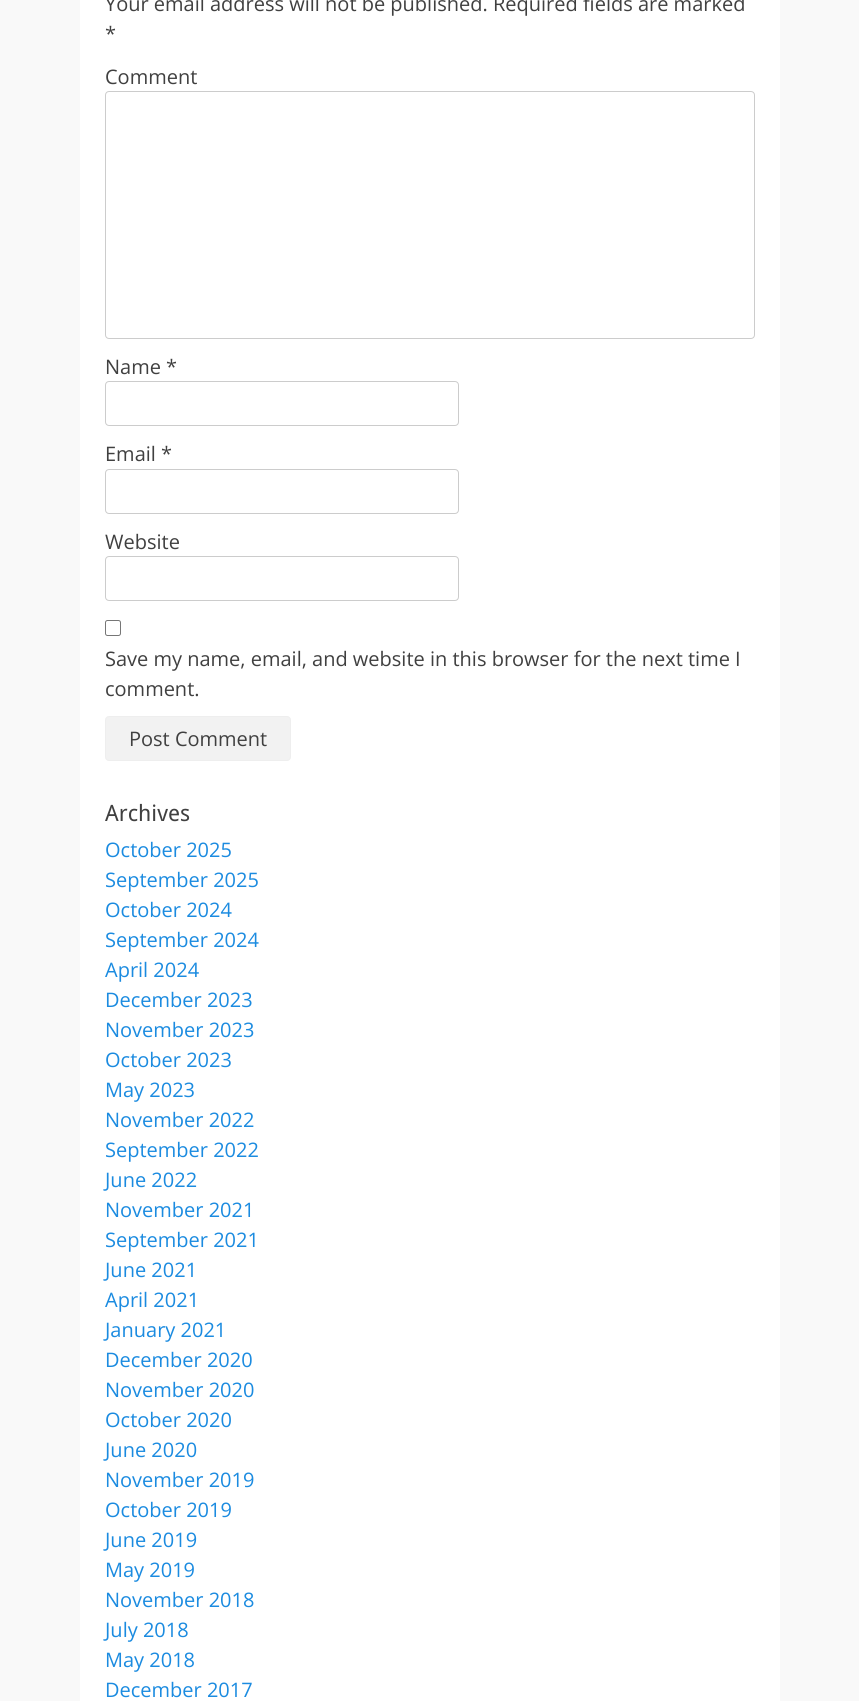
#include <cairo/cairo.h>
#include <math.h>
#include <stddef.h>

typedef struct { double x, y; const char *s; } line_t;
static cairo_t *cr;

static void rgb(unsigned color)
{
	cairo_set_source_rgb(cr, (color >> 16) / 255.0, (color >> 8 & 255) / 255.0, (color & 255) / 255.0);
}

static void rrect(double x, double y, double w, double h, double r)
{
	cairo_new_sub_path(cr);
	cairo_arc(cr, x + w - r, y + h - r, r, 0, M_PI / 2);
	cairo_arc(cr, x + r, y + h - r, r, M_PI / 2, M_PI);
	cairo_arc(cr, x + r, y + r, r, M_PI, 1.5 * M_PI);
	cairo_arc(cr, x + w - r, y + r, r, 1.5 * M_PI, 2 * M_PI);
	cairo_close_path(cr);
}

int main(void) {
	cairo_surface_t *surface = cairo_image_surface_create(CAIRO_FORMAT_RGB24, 859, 1701);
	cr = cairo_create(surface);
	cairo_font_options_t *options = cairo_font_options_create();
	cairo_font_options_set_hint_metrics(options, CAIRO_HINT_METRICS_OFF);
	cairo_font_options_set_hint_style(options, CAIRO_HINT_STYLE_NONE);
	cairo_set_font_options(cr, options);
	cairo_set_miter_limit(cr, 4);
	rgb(0xf9f9f9);
	cairo_paint(cr);
	rgb(0xffffff);
	cairo_rectangle(cr, 80, 0, 700, 1701);
	cairo_fill(cr);
	rrect(105.5, 91.5, 649, 247, 3.5);
	rgb(0xcccccc);
	cairo_set_line_width(cr, 1);
	cairo_stroke(cr);
	rrect(105.5, 381.5, 353, 44, 3.5);
	cairo_stroke(cr);
	rrect(105.5, 469.5, 353, 44, 3.5);
	cairo_stroke(cr);
	rrect(105.5, 556.5, 353, 44, 3.5);
	cairo_stroke(cr);
	rrect(105.5, 620.5, 15, 15, 2);
	rgb(0x767676);
	cairo_stroke(cr);
	rgb(0xf2f2f2);
	rrect(105.5, 716.5, 185, 44, 3.5);
	cairo_fill_preserve(cr);
	rgb(0xeeeeee);
	cairo_stroke(cr);
	cairo_select_font_face(cr, "Open Sans", CAIRO_FONT_SLANT_NORMAL, CAIRO_FONT_WEIGHT_NORMAL);
	cairo_set_font_size(cr, 20);
	rgb(0x404040);
	{
		static const line_t items[] = {
			{105, 11, "Your email address will not be published. Required fields are marked"},
			{105, 41, "*"},
			{105, 84, "Comment"},
			{105, 374, "Name *"},
			{105, 461, "Email *"},
			{105, 549, "Website"},
			{105, 666, "Save my name, email, and website in this browser for the next time I"},
			{105, 696, "comment."},
			{129, 746, "Post Comment"},
		};
		for (size_t i = 0; i < sizeof items / sizeof *items; i++) {
			cairo_move_to(cr, items[i].x, items[i].y);
			cairo_show_text(cr, items[i].s);
		}
	}
	cairo_select_font_face(cr, "Droid Sans", CAIRO_FONT_SLANT_NORMAL, CAIRO_FONT_WEIGHT_NORMAL);
	cairo_set_font_size(cr, 22.5);
	cairo_move_to(cr, 105, 821);
	cairo_show_text(cr, "Archives");
	cairo_select_font_face(cr, "Open Sans", CAIRO_FONT_SLANT_NORMAL, CAIRO_FONT_WEIGHT_NORMAL);
	cairo_set_font_size(cr, 20);
	rgb(0x1b8be0);
	{
		static const line_t items[] = {
			{105, 857, "October 2025"},
			{105, 887, "September 2025"},
			{105, 917, "October 2024"},
			{105, 947, "September 2024"},
			{105, 977, "April 2024"},
			{105, 1007, "December 2023"},
			{105, 1037, "November 2023"},
			{105, 1067, "October 2023"},
			{105, 1097, "May 2023"},
			{105, 1127, "November 2022"},
			{105, 1157, "September 2022"},
			{105, 1187, "June 2022"},
			{105, 1217, "November 2021"},
			{105, 1247, "September 2021"},
			{105, 1277, "June 2021"},
			{105, 1307, "April 2021"},
			{105, 1337, "January 2021"},
			{105, 1367, "December 2020"},
			{105, 1397, "November 2020"},
			{105, 1427, "October 2020"},
			{105, 1457, "June 2020"},
			{105, 1487, "November 2019"},
			{105, 1517, "October 2019"},
			{105, 1547, "June 2019"},
			{105, 1577, "May 2019"},
			{105, 1607, "November 2018"},
			{105, 1637, "July 2018"},
			{105, 1667, "May 2018"},
			{105, 1697, "December 2017"},
		};
		for (size_t i = 0; i < sizeof items / sizeof *items; i++) {
			cairo_move_to(cr, items[i].x, items[i].y);
			cairo_show_text(cr, items[i].s);
		}
	}
	cairo_surface_write_to_png(surface, "page.png");
	cairo_font_options_destroy(options);
	cairo_destroy(cr);
	cairo_surface_destroy(surface);
	return 0;
}
